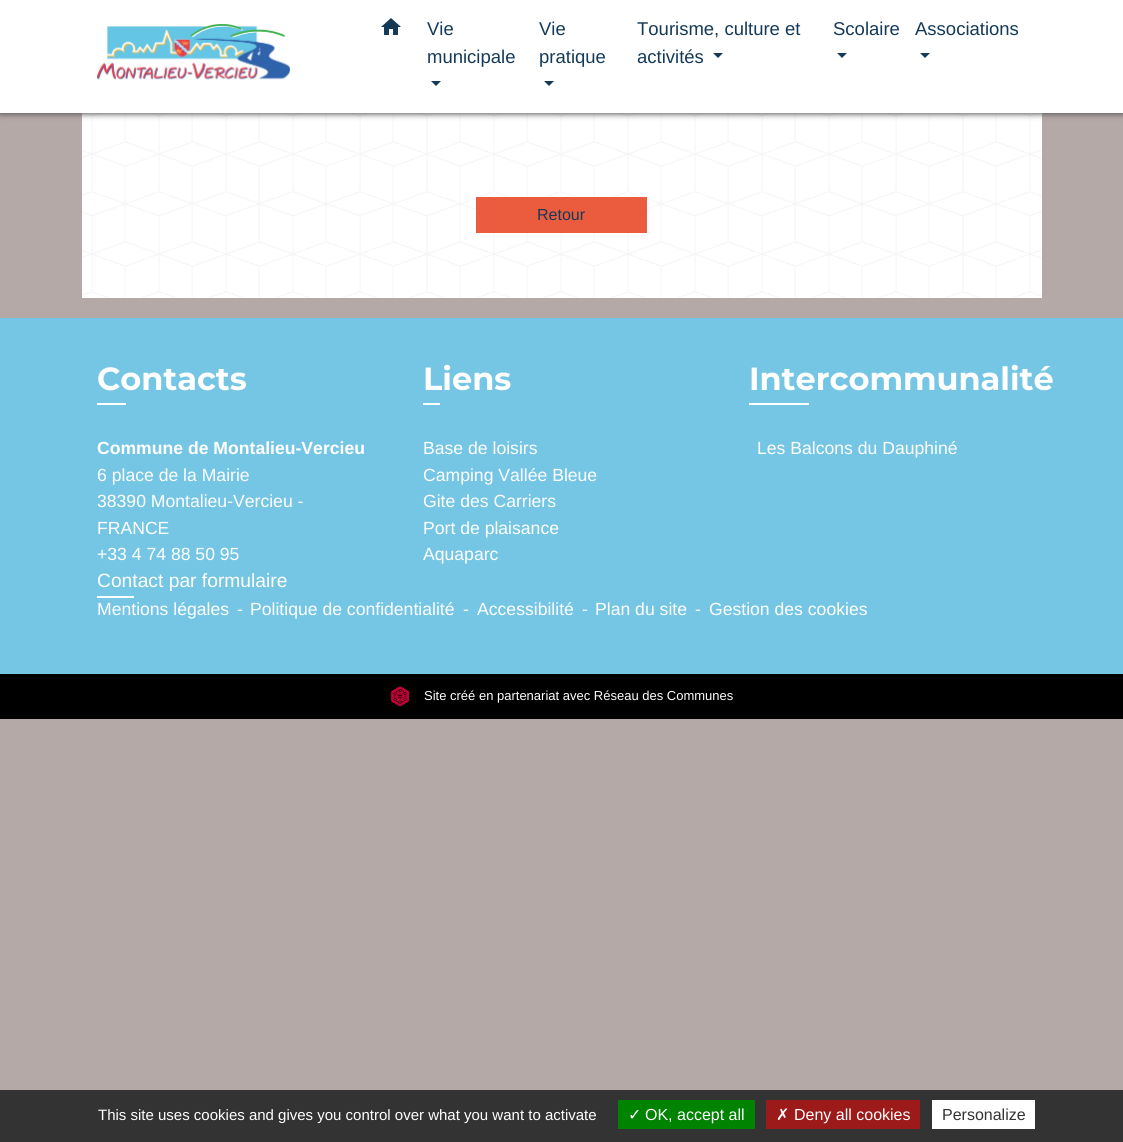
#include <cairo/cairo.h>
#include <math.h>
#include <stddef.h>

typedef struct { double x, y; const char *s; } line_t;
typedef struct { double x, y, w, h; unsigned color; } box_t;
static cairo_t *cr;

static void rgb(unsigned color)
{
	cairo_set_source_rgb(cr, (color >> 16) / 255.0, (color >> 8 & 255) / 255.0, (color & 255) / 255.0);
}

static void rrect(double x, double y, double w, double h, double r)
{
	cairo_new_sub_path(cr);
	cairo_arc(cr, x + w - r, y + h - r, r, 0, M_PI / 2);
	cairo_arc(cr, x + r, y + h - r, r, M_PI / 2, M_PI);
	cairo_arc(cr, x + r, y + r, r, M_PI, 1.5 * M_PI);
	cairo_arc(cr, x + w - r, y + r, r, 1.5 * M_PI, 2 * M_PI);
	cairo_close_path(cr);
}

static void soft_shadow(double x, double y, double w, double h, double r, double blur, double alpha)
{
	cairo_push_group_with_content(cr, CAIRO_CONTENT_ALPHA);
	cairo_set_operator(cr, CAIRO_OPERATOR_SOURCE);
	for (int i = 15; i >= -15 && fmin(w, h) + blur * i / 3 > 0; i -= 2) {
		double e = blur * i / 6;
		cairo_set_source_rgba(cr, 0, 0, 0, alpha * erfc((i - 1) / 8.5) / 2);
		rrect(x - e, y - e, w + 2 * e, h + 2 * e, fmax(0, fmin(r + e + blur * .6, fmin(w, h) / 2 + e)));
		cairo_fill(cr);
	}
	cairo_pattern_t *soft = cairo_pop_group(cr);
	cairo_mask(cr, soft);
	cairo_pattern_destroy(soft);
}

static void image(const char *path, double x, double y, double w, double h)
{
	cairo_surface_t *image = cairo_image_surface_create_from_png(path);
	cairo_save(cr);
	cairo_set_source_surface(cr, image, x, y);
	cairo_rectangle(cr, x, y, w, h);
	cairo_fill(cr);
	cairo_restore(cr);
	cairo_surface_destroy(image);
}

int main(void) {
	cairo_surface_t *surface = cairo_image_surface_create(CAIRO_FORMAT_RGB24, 1123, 1142);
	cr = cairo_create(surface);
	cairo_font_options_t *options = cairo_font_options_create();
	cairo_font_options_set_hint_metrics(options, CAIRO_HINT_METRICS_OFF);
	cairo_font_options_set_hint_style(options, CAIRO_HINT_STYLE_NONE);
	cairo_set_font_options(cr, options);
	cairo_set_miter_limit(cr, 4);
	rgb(0xb5a9a7);
	cairo_paint(cr);
	rgb(0xffffff);
	cairo_rectangle(cr, 82, 113, 960, 185);
	cairo_fill(cr);
	image("img/3.png", 82, 113, 960, 185);
	rgb(0x535353);
	soft_shadow(0, 1, 1123, 113, 0, 3, 1);
	rgb(0xffffff);
	cairo_rectangle(cr, 0, 0, 1123, 113);
	cairo_fill(cr);
	image("img/1.png", 97, 24, 193, 56);
	image("img/2.png", 381, 18, 20, 17);
	rgb(0x143a58);
	cairo_new_path(cr);
	cairo_move_to(cr, 431, 81);
	cairo_line_to(cr, 441, 81);
	cairo_line_to(cr, 436, 86);
	cairo_close_path(cr);
	cairo_fill(cr);
	cairo_new_path(cr);
	cairo_move_to(cr, 544, 81);
	cairo_line_to(cr, 554, 81);
	cairo_line_to(cr, 549, 86);
	cairo_close_path(cr);
	cairo_fill(cr);
	cairo_new_path(cr);
	cairo_move_to(cr, 713, 53);
	cairo_line_to(cr, 723, 53);
	cairo_line_to(cr, 718, 58);
	cairo_close_path(cr);
	cairo_fill(cr);
	cairo_new_path(cr);
	cairo_move_to(cr, 837, 53);
	cairo_line_to(cr, 847, 53);
	cairo_line_to(cr, 842, 58);
	cairo_close_path(cr);
	cairo_fill(cr);
	cairo_new_path(cr);
	cairo_move_to(cr, 920, 53);
	cairo_line_to(cr, 930, 53);
	cairo_line_to(cr, 925, 58);
	cairo_close_path(cr);
	cairo_fill(cr);
	{
		static const box_t items[] = {
			{476, 197, 171, 36, 0xeb5c3f},
			{0, 318, 1123, 356, 0x75c6e4},
			{97, 403, 29, 2, 0xffffff},
			{97, 596, 37, 2, 0xffffff},
			{423, 403, 17, 2, 0xffffff},
			{749, 403, 60, 2, 0xffffff},
			{0, 674, 1123, 45, 0x000000},
		};
		for (size_t i = 0; i < sizeof items / sizeof *items; i++) {
			rgb(items[i].color);
			cairo_rectangle(cr, items[i].x, items[i].y, items[i].w, items[i].h);
			cairo_fill(cr);
		}
	}
	image("img/4.png", 391, 686, 19, 21);
	{
		static const box_t items[] = {
			{0, 1090, 1123, 52, 0x333333},
			{618, 1100, 137, 29, 0x008300},
			{766, 1100, 154, 29, 0x9c1a1a},
			{932, 1100, 103, 29, 0xffffff},
		};
		for (size_t i = 0; i < sizeof items / sizeof *items; i++) {
			rgb(items[i].color);
			cairo_rectangle(cr, items[i].x, items[i].y, items[i].w, items[i].h);
			cairo_fill(cr);
		}
	}
	cairo_select_font_face(cr, "Liberation Sans", CAIRO_FONT_SLANT_NORMAL, CAIRO_FONT_WEIGHT_NORMAL);
	cairo_set_font_size(cr, 18.5);
	rgb(0x143a58);
	{
		static const line_t items[] = {
			{427, 35, "Vie"},
			{427, 63, "municipale"},
			{539, 35, "Vie"},
			{539, 63, "pratique"},
			{637, 35, "Tourisme, culture et"},
			{637, 63, "activités"},
			{833, 35, "Scolaire"},
			{915, 35, "Associations"},
		};
		for (size_t i = 0; i < sizeof items / sizeof *items; i++) {
			cairo_move_to(cr, items[i].x, items[i].y);
			cairo_show_text(cr, items[i].s);
		}
	}
	cairo_set_font_size(cr, 16);
	cairo_move_to(cr, 537, 220);
	cairo_show_text(cr, "Retour");
	cairo_select_font_face(cr, "Montserrat", CAIRO_FONT_SLANT_NORMAL, CAIRO_FONT_WEIGHT_BOLD);
	cairo_set_font_size(cr, 32);
	rgb(0xffffff);
	cairo_move_to(cr, 97, 390);
	cairo_show_text(cr, "Contacts");
	cairo_select_font_face(cr, "Liberation Sans", CAIRO_FONT_SLANT_NORMAL, CAIRO_FONT_WEIGHT_BOLD);
	cairo_set_font_size(cr, 17.6);
	cairo_move_to(cr, 97, 454);
	cairo_show_text(cr, "Commune de Montalieu-Vercieu");
	cairo_select_font_face(cr, "Liberation Sans", CAIRO_FONT_SLANT_NORMAL, CAIRO_FONT_WEIGHT_NORMAL);
	{
		static const line_t items[] = {
			{97, 481, "6 place de la Mairie"},
			{97, 507, "38390 Montalieu-Vercieu -"},
			{97, 534, "FRANCE"},
			{97, 560, "+33 4 74 88 50 95"},
		};
		for (size_t i = 0; i < sizeof items / sizeof *items; i++) {
			cairo_move_to(cr, items[i].x, items[i].y);
			cairo_show_text(cr, items[i].s);
		}
	}
	cairo_set_font_size(cr, 19.25);
	cairo_move_to(cr, 97, 587);
	cairo_show_text(cr, "Contact par formulaire");
	cairo_select_font_face(cr, "Montserrat", CAIRO_FONT_SLANT_NORMAL, CAIRO_FONT_WEIGHT_BOLD);
	cairo_set_font_size(cr, 32);
	cairo_move_to(cr, 423, 390);
	cairo_show_text(cr, "Liens");
	cairo_select_font_face(cr, "Liberation Sans", CAIRO_FONT_SLANT_NORMAL, CAIRO_FONT_WEIGHT_NORMAL);
	cairo_set_font_size(cr, 17.6);
	{
		static const line_t items[] = {
			{423, 454, "Base de loisirs"},
			{423, 481, "Camping Vallée Bleue"},
			{423, 507, "Gite des Carriers"},
			{423, 534, "Port de plaisance"},
			{423, 560, "Aquaparc"},
		};
		for (size_t i = 0; i < sizeof items / sizeof *items; i++) {
			cairo_move_to(cr, items[i].x, items[i].y);
			cairo_show_text(cr, items[i].s);
		}
	}
	cairo_select_font_face(cr, "Montserrat", CAIRO_FONT_SLANT_NORMAL, CAIRO_FONT_WEIGHT_BOLD);
	cairo_set_font_size(cr, 32);
	cairo_move_to(cr, 749, 390);
	cairo_show_text(cr, "Intercommunalité");
	cairo_select_font_face(cr, "Liberation Sans", CAIRO_FONT_SLANT_NORMAL, CAIRO_FONT_WEIGHT_NORMAL);
	cairo_set_font_size(cr, 17.6);
	{
		static const line_t items[] = {
			{757, 454, "Les Balcons du Dauphiné"},
			{97, 615, "Mentions légales"},
			{237, 615, "-"},
			{250, 615, "Politique de confidentialité"},
			{463, 615, "-"},
			{477, 615, "Accessibilité"},
			{582, 615, "-"},
			{595, 615, "Plan du site"},
			{695, 615, "-"},
			{709, 615, "Gestion des cookies"},
		};
		for (size_t i = 0; i < sizeof items / sizeof *items; i++) {
			cairo_move_to(cr, items[i].x, items[i].y);
			cairo_show_text(cr, items[i].s);
		}
	}
	cairo_set_font_size(cr, 13);
	cairo_move_to(cr, 424, 700);
	cairo_show_text(cr, "Site créé en partenariat avec Réseau des Communes");
	cairo_set_font_size(cr, 15);
	cairo_move_to(cr, 98, 1120);
	cairo_show_text(cr, "This site uses cookies and gives you control over what you want to activate");
	cairo_select_font_face(cr, "DejaVu Sans", CAIRO_FONT_SLANT_NORMAL, CAIRO_FONT_WEIGHT_NORMAL);
	cairo_set_font_size(cr, 16);
	cairo_move_to(cr, 628, 1120);
	cairo_show_text(cr, "✓");
	cairo_select_font_face(cr, "Liberation Sans", CAIRO_FONT_SLANT_NORMAL, CAIRO_FONT_WEIGHT_NORMAL);
	cairo_move_to(cr, 645, 1120);
	cairo_show_text(cr, "OK, accept all");
	cairo_select_font_face(cr, "DejaVu Sans", CAIRO_FONT_SLANT_NORMAL, CAIRO_FONT_WEIGHT_NORMAL);
	cairo_move_to(cr, 776, 1120);
	cairo_show_text(cr, "✗");
	cairo_select_font_face(cr, "Liberation Sans", CAIRO_FONT_SLANT_NORMAL, CAIRO_FONT_WEIGHT_NORMAL);
	cairo_move_to(cr, 794, 1120);
	cairo_show_text(cr, "Deny all cookies");
	rgb(0x333333);
	cairo_move_to(cr, 942, 1120);
	cairo_show_text(cr, "Personalize");
	cairo_surface_write_to_png(surface, "page.png");
	cairo_font_options_destroy(options);
	cairo_destroy(cr);
	cairo_surface_destroy(surface);
	return 0;
}
